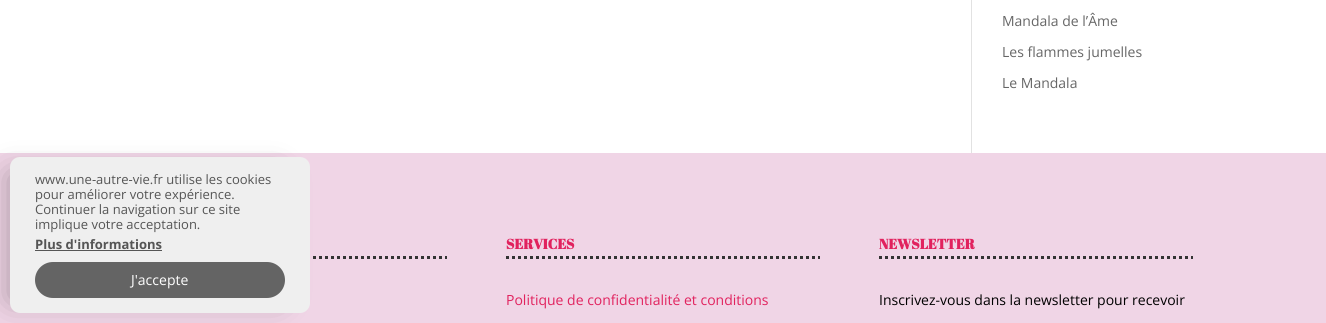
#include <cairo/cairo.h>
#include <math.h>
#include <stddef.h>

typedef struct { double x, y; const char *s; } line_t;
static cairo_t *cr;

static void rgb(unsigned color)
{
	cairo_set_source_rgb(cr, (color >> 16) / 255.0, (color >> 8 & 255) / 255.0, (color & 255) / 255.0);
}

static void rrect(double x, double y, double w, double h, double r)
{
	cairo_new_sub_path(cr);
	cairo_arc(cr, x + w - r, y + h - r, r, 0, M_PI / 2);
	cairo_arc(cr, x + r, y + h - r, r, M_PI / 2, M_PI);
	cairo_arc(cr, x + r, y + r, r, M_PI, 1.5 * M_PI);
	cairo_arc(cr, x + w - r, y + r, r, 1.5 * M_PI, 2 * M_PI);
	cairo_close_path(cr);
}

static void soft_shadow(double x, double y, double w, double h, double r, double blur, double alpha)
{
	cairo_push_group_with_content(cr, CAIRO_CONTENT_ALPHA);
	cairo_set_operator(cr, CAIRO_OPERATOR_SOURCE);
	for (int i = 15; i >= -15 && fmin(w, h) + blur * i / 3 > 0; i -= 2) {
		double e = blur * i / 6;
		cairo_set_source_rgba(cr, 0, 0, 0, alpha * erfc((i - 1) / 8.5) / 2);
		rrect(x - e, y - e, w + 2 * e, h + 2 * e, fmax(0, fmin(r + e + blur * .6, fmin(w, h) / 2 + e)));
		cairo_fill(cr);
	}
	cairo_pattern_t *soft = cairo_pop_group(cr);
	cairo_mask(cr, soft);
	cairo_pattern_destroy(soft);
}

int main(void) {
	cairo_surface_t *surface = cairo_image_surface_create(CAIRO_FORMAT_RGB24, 1326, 323);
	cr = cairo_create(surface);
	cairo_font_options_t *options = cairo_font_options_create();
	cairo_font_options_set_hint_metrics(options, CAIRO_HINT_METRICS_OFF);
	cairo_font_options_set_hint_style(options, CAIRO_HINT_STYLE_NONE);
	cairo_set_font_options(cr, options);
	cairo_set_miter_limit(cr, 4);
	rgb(0xffffff);
	cairo_paint(cr);
	rgb(0xf0d5e6);
	cairo_rectangle(cr, 0, 153, 1326, 170);
	cairo_fill(cr);
	cairo_new_path(cr);
	cairo_move_to(cr, 133, 257.5);
	cairo_line_to(cr, 447, 257.5);
	rgb(0x333333);
	cairo_set_line_width(cr, 3);
	cairo_set_dash(cr, (double[]){3, 3}, 2, 0);
	cairo_stroke(cr);
	rgb(0x000000);
	soft_shadow(9, 174, 270, 126, 0, 15.5, 0.3);
	rgb(0xefefef);
	rrect(10, 157, 300, 156, 10);
	cairo_fill(cr);
	rgb(0x555555);
	cairo_rectangle(cr, 35, 250, 127, 1);
	cairo_fill(cr);
	rgb(0x646464);
	rrect(35, 262, 250, 36, 18);
	cairo_fill(cr);
	rgb(0xe2e2e2);
	cairo_rectangle(cr, 971, 0, 1, 153);
	cairo_fill(cr);
	cairo_new_path(cr);
	cairo_move_to(cr, 506, 257.5);
	cairo_line_to(cr, 820, 257.5);
	rgb(0x333333);
	cairo_stroke(cr);
	cairo_new_path(cr);
	cairo_move_to(cr, 879, 257.5);
	cairo_line_to(cr, 1193, 257.5);
	cairo_stroke(cr);
	cairo_select_font_face(cr, "Open Sans", CAIRO_FONT_SLANT_NORMAL, CAIRO_FONT_WEIGHT_NORMAL);
	cairo_set_font_size(cr, 13);
	rgb(0x555555);
	{
		static const line_t items[] = {
			{35, 184, "www.une-autre-vie.fr utilise les cookies"},
			{35, 199, "pour améliorer votre expérience."},
			{35, 214, "Continuer la navigation sur ce site"},
			{35, 229, "implique votre acceptation."},
		};
		for (size_t i = 0; i < sizeof items / sizeof *items; i++) {
			cairo_move_to(cr, items[i].x, items[i].y);
			cairo_show_text(cr, items[i].s);
		}
	}
	cairo_select_font_face(cr, "Open Sans", CAIRO_FONT_SLANT_NORMAL, CAIRO_FONT_WEIGHT_BOLD);
	cairo_move_to(cr, 35, 249);
	cairo_show_text(cr, "Plus d'informations");
	cairo_select_font_face(cr, "Open Sans", CAIRO_FONT_SLANT_NORMAL, CAIRO_FONT_WEIGHT_NORMAL);
	cairo_set_font_size(cr, 14);
	rgb(0xffffff);
	cairo_move_to(cr, 131, 285);
	cairo_show_text(cr, "J'accepte");
	rgb(0x666666);
	{
		static const line_t items[] = {
			{1002, 26, "Mandala de l’Âme"},
			{1002, 57, "Les flammes jumelles"},
			{1002, 88, "Le Mandala"},
		};
		for (size_t i = 0; i < sizeof items / sizeof *items; i++) {
			cairo_move_to(cr, items[i].x, items[i].y);
			cairo_show_text(cr, items[i].s);
		}
	}
	cairo_select_font_face(cr, "Abril Fatface", CAIRO_FONT_SLANT_NORMAL, CAIRO_FONT_WEIGHT_BOLD);
	rgb(0xe1225e);
	cairo_move_to(cr, 506, 249);
	cairo_show_text(cr, "SERVICES");
	cairo_select_font_face(cr, "Open Sans", CAIRO_FONT_SLANT_NORMAL, CAIRO_FONT_WEIGHT_NORMAL);
	cairo_move_to(cr, 506, 305);
	cairo_show_text(cr, "Politique de confidentialité et conditions");
	cairo_select_font_face(cr, "Abril Fatface", CAIRO_FONT_SLANT_NORMAL, CAIRO_FONT_WEIGHT_BOLD);
	cairo_move_to(cr, 879, 249);
	cairo_show_text(cr, "NEWSLETTER");
	cairo_select_font_face(cr, "Open Sans", CAIRO_FONT_SLANT_NORMAL, CAIRO_FONT_WEIGHT_NORMAL);
	rgb(0x000000);
	cairo_move_to(cr, 879, 305);
	cairo_show_text(cr, "Inscrivez-vous dans la newsletter pour recevoir");
	cairo_surface_write_to_png(surface, "page.png");
	cairo_font_options_destroy(options);
	cairo_destroy(cr);
	cairo_surface_destroy(surface);
	return 0;
}
